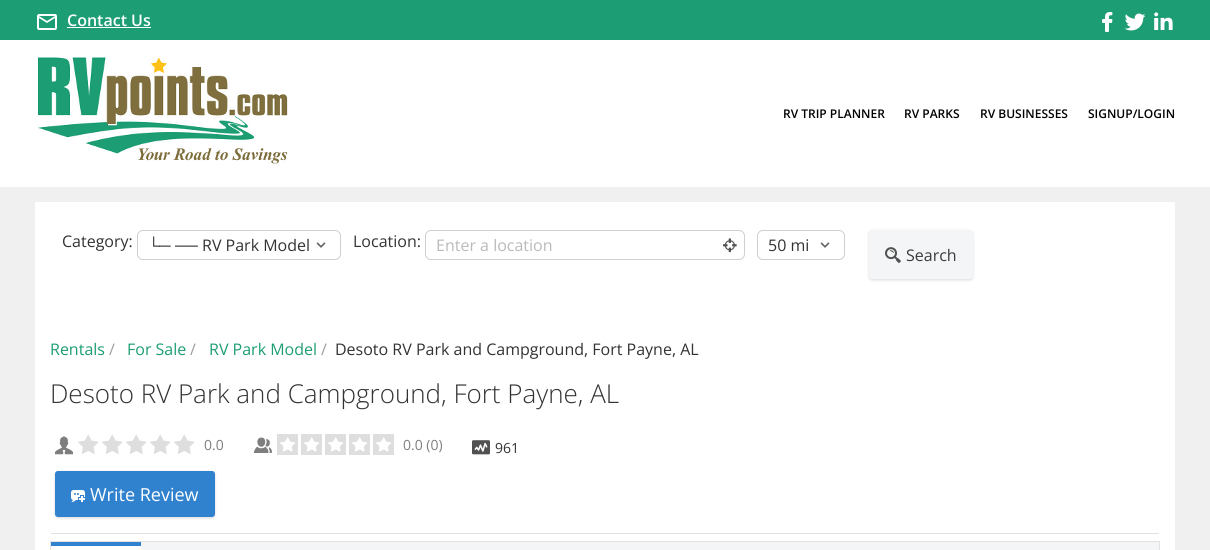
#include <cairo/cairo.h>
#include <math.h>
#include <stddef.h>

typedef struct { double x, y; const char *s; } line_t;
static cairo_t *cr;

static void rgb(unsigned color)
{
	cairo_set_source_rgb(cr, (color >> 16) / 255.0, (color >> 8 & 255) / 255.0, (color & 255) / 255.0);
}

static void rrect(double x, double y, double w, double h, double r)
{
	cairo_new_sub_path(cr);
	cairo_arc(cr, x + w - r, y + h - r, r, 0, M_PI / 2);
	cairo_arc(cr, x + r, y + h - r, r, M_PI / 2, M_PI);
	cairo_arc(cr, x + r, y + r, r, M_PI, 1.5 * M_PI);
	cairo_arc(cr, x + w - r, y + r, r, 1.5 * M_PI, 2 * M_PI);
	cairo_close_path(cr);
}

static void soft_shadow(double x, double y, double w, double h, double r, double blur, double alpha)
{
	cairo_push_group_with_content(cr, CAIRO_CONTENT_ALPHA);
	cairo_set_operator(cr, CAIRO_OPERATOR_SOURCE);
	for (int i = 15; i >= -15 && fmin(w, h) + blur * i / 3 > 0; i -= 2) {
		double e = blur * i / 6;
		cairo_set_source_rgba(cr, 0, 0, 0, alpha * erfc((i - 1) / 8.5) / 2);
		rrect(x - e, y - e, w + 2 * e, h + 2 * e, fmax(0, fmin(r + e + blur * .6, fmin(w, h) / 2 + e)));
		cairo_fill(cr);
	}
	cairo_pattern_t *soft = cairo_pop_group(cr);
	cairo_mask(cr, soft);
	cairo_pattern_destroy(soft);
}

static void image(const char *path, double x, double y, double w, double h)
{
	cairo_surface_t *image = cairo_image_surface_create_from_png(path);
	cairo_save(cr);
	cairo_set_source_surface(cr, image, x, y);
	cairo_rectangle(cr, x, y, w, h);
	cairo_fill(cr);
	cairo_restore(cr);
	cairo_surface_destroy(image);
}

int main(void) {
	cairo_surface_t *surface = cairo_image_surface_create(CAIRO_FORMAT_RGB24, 1210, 550);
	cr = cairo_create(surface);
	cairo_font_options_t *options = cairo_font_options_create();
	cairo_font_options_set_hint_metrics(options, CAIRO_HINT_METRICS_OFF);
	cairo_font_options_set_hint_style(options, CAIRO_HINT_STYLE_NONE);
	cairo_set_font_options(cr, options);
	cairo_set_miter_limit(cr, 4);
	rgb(0xffffff);
	cairo_paint(cr);
	rgb(0x1c9d74);
	cairo_rectangle(cr, 0, 0, 1210, 40);
	cairo_fill(cr);
	image("img/1.png", 37, 14, 20, 16);
	rgb(0xffffff);
	cairo_rectangle(cr, 67, 27, 84, 1);
	cairo_fill(cr);
	image("img/2.png", 1102, 12, 11, 20);
	image("img/3.png", 1124, 13, 22, 18);
	image("img/4.png", 1154, 12, 19, 18);
	image("img/5.png", 38, 57, 250, 107);
	rgb(0xf0f0f0);
	cairo_rectangle(cr, 0, 187, 1210, 363);
	cairo_fill(cr);
	rgb(0xffffff);
	cairo_rectangle(cr, 35, 202, 1140, 348);
	cairo_fill(cr);
	image("img/6.png", 316, 242, 10, 6);
	rrect(137.5, 230.5, 203, 29, 5.5);
	rgb(0xcfcfcf);
	cairo_set_line_width(cr, 1);
	cairo_stroke(cr);
	rrect(425.5, 230.5, 319, 29, 5.5);
	cairo_stroke(cr);
	image("img/7.png", 723, 238, 14, 15);
	image("img/6.png", 820, 242, 10, 6);
	rrect(757.5, 230.5, 87, 29, 5.5);
	cairo_stroke(cr);
	rgb(0x000000);
	soft_shadow(869, 231, 104, 49, 3, 1, 0.06);
	soft_shadow(869, 231, 104, 49, 3, 1.5, 0.1);
	rgb(0xf4f5f6);
	rrect(869.5, 230.5, 103, 48, 2.5);
	cairo_fill_preserve(cr);
	cairo_stroke(cr);
	image("img/8.png", 885, 247, 16, 17);
	rgb(0xe1e1e1);
	cairo_rectangle(cr, 51, 533, 1108, 1);
	cairo_fill(cr);
	image("img/9.png", 55, 436, 18, 19);
	image("img/10.png", 78, 434, 117, 20);
	image("img/11.png", 254, 437, 18, 16);
	image("img/12.png", 277, 434, 117, 21);
	image("img/13.png", 472, 440, 18, 15);
	rgb(0x000000);
	soft_shadow(55, 472, 160, 46, 3, 1, 0.06);
	soft_shadow(55, 472, 160, 46, 3, 1.5, 0.1);
	rgb(0x3182ce);
	rrect(55.5, 471.5, 159, 45, 2.5);
	cairo_fill_preserve(cr);
	cairo_stroke(cr);
	image("img/14.png", 71, 490, 14, 12);
	cairo_rectangle(cr, 50.5, 541.5, 1109, 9);
	rgb(0xe1e1e1);
	cairo_stroke(cr);
	rgb(0xf4f5f6);
	cairo_rectangle(cr, 141, 542, 1018, 8);
	cairo_fill(cr);
	rgb(0x3182ce);
	cairo_rectangle(cr, 51, 542, 90, 4);
	cairo_fill(cr);
	cairo_select_font_face(cr, "Open Sans SemiBold", CAIRO_FONT_SLANT_NORMAL, CAIRO_FONT_WEIGHT_NORMAL);
	cairo_set_font_size(cr, 16);
	rgb(0xffffff);
	cairo_move_to(cr, 67, 26);
	cairo_show_text(cr, "Contact Us");
	cairo_set_font_size(cr, 12);
	rgb(0x000000);
	{
		static const line_t items[] = {
			{783, 118, "RV TRIP PLANNER"},
			{904, 118, "RV PARKS"},
			{980, 118, "RV BUSINESSES"},
			{1088, 118, "SIGNUP/LOGIN"},
		};
		for (size_t i = 0; i < sizeof items / sizeof *items; i++) {
			cairo_move_to(cr, items[i].x, items[i].y);
			cairo_show_text(cr, items[i].s);
		}
	}
	cairo_select_font_face(cr, "Open Sans", CAIRO_FONT_SLANT_NORMAL, CAIRO_FONT_WEIGHT_NORMAL);
	cairo_set_font_size(cr, 16);
	rgb(0x333333);
	cairo_move_to(cr, 62, 247);
	cairo_show_text(cr, "Category:");
	cairo_select_font_face(cr, "Liberation Sans", CAIRO_FONT_SLANT_NORMAL, CAIRO_FONT_WEIGHT_NORMAL);
	cairo_move_to(cr, 148, 251);
	cairo_show_text(cr, "└─ ──");
	cairo_select_font_face(cr, "Open Sans", CAIRO_FONT_SLANT_NORMAL, CAIRO_FONT_WEIGHT_NORMAL);
	cairo_move_to(cr, 202, 251);
	cairo_show_text(cr, "RV Park Model");
	cairo_move_to(cr, 353, 247);
	cairo_show_text(cr, "Location:");
	rgb(0xbababa);
	cairo_move_to(cr, 436, 251);
	cairo_show_text(cr, "Enter a location");
	rgb(0x333333);
	cairo_move_to(cr, 768, 251);
	cairo_show_text(cr, "50 mi");
	rgb(0x3b3b3b);
	cairo_move_to(cr, 906, 261);
	cairo_show_text(cr, "Search");
	rgb(0x1c9d74);
	cairo_move_to(cr, 50, 355);
	cairo_show_text(cr, "Rentals");
	rgb(0x9e9e9e);
	cairo_move_to(cr, 109, 355);
	cairo_show_text(cr, "/");
	rgb(0x1c9d74);
	cairo_move_to(cr, 127, 355);
	cairo_show_text(cr, "For Sale");
	rgb(0x9e9e9e);
	cairo_move_to(cr, 190, 355);
	cairo_show_text(cr, "/");
	rgb(0x1c9d74);
	cairo_move_to(cr, 209, 355);
	cairo_show_text(cr, "RV Park Model");
	rgb(0x9e9e9e);
	cairo_move_to(cr, 321, 355);
	cairo_show_text(cr, "/");
	rgb(0x333333);
	cairo_move_to(cr, 335, 355);
	cairo_show_text(cr, "Desoto RV Park and Campground, Fort Payne, AL");
	cairo_select_font_face(cr, "Open Sans Light", CAIRO_FONT_SLANT_NORMAL, CAIRO_FONT_WEIGHT_NORMAL);
	cairo_set_font_size(cr, 26);
	cairo_move_to(cr, 50, 403);
	cairo_show_text(cr, "Desoto RV Park and Campground, Fort Payne, AL");
	cairo_select_font_face(cr, "Open Sans", CAIRO_FONT_SLANT_NORMAL, CAIRO_FONT_WEIGHT_NORMAL);
	cairo_set_font_size(cr, 14);
	rgb(0x7e7e7e);
	cairo_move_to(cr, 204, 450);
	cairo_show_text(cr, "0.0");
	cairo_move_to(cr, 403, 450);
	cairo_show_text(cr, "0.0 (0)");
	rgb(0x333333);
	cairo_move_to(cr, 495, 453);
	cairo_show_text(cr, "961");
	cairo_set_font_size(cr, 18);
	rgb(0xffffff);
	cairo_move_to(cr, 90, 501);
	cairo_show_text(cr, "Write Review");
	cairo_surface_write_to_png(surface, "page.png");
	cairo_font_options_destroy(options);
	cairo_destroy(cr);
	cairo_surface_destroy(surface);
	return 0;
}
